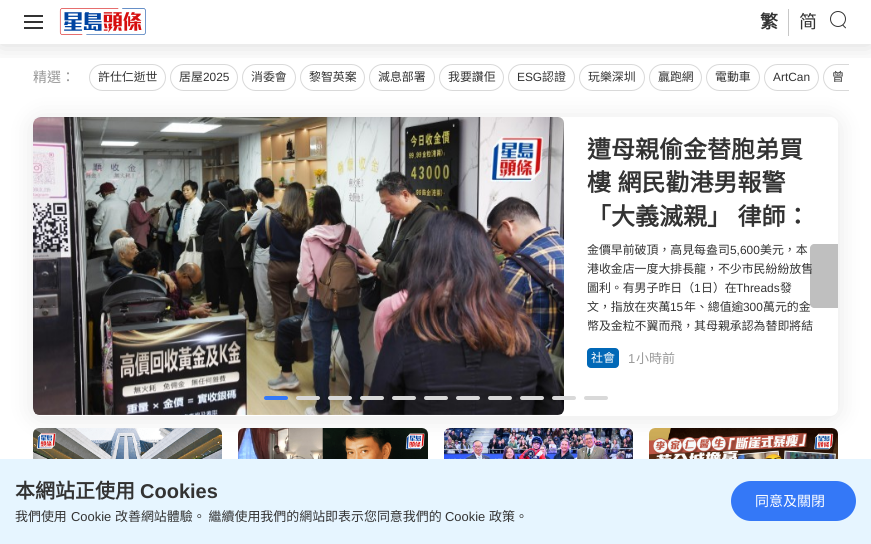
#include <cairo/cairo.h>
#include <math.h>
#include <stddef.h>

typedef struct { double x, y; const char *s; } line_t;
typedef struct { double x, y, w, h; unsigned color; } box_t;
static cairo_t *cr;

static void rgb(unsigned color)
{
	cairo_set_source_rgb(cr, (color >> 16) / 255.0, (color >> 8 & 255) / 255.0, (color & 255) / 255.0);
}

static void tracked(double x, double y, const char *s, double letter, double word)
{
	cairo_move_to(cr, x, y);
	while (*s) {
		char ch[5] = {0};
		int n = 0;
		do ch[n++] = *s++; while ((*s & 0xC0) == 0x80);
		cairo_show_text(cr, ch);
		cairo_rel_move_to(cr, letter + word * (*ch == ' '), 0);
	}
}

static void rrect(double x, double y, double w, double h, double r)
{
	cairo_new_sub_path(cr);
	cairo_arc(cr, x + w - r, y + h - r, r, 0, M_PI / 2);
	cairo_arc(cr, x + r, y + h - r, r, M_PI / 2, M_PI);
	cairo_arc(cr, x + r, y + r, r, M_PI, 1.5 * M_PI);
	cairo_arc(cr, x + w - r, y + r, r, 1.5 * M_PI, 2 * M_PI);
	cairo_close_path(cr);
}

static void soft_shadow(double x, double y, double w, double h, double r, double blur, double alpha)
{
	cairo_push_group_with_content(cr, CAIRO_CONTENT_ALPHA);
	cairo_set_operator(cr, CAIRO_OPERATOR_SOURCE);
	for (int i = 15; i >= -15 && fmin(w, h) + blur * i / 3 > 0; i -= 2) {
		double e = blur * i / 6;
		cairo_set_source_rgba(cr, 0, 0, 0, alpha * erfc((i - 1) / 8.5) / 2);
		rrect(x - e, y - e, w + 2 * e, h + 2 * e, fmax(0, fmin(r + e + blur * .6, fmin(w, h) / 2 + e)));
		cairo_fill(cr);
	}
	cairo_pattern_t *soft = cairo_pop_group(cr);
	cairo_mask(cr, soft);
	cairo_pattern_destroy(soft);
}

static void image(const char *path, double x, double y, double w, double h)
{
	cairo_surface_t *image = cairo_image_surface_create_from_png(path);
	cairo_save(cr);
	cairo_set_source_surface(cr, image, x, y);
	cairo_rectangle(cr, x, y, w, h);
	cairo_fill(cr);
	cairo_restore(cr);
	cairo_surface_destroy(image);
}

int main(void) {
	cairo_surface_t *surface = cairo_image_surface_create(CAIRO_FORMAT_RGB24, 871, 544);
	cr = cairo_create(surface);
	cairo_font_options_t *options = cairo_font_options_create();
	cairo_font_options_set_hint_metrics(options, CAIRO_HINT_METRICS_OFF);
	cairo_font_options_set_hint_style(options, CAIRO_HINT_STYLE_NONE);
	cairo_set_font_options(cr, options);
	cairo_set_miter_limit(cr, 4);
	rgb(0xffffff);
	cairo_paint(cr);
	cairo_save(cr);
	cairo_set_fill_rule(cr, CAIRO_FILL_RULE_EVEN_ODD);
	cairo_new_path(cr);
	cairo_move_to(cr, 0, 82);
	cairo_line_to(cr, 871, 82);
	cairo_line_to(cr, 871, 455);
	cairo_line_to(cr, 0, 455);
	cairo_close_path(cr);
	cairo_move_to(cr, 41, 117);
	cairo_line_to(cr, 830, 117);
	cairo_curve_to(cr, 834.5, 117, 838, 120.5, 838, 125);
	cairo_line_to(cr, 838, 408);
	cairo_curve_to(cr, 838, 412.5, 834.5, 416, 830, 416);
	cairo_line_to(cr, 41, 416);
	cairo_curve_to(cr, 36.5, 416, 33, 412.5, 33, 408);
	cairo_line_to(cr, 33, 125);
	cairo_curve_to(cr, 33, 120.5, 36.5, 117, 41, 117);
	cairo_close_path(cr);
	cairo_clip(cr);
	rgb(0x000000);
	soft_shadow(33, 119, 805, 299, 8, 12, 0.1);
	cairo_restore(cr);
	rrect(89.5, 64.5, 76, 26, 13);
	rgb(0xd9d9d9);
	cairo_set_line_width(cr, 1);
	cairo_stroke(cr);
	rrect(170.5, 64.5, 67, 26, 13);
	cairo_stroke(cr);
	rrect(242.5, 64.5, 53, 26, 13);
	cairo_stroke(cr);
	rrect(300.5, 64.5, 64, 26, 13);
	cairo_stroke(cr);
	rrect(369.5, 64.5, 65, 26, 13);
	cairo_stroke(cr);
	rrect(439.5, 64.5, 64, 26, 13);
	cairo_stroke(cr);
	rrect(508.5, 64.5, 66, 26, 13);
	cairo_stroke(cr);
	rrect(579.5, 64.5, 65, 26, 13);
	cairo_stroke(cr);
	rrect(649.5, 64.5, 52, 26, 13);
	cairo_stroke(cr);
	rrect(706.5, 64.5, 53, 26, 13);
	cairo_stroke(cr);
	rrect(764.5, 64.5, 54, 26, 13);
	cairo_stroke(cr);
	cairo_save(cr);
	cairo_rectangle(cr, 87, 64, 762, 27);
	cairo_clip(cr);
	rrect(823.5, 64.5, 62, 26, 13);
	cairo_stroke(cr);
	cairo_restore(cr);
	cairo_save(cr);
	cairo_rectangle(cr, 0, 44, 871, 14);
	cairo_clip(cr);
	rgb(0x000000);
	soft_shadow(0, 1, 871, 44, 0, 12, 0.15);
	cairo_restore(cr);
	{
		static const box_t items[] = {
			{24, 15, 19, 2, 0x333333},
			{24, 21, 19, 2, 0x333333},
			{24, 27, 19, 2, 0x333333},
		};
		for (size_t i = 0; i < sizeof items / sizeof *items; i++) {
			rgb(items[i].color);
			cairo_rectangle(cr, items[i].x, items[i].y, items[i].w, items[i].h);
			cairo_fill(cr);
		}
	}
	image("img/1.png", 59, 8, 87, 27);
	rgb(0xc7c7c7);
	cairo_rectangle(cr, 788, 9, 1, 27);
	cairo_fill(cr);
	image("img/2.png", 830, 11, 16, 18);
	image("img/3.png", 33, 117, 531, 298);
	cairo_set_source_rgba(cr, 0, 0, 0, 0.25);
	cairo_new_path(cr);
	cairo_move_to(cr, 33, 244);
	cairo_line_to(cr, 57, 244);
	cairo_curve_to(cr, 59, 244, 61, 246, 61, 248);
	cairo_line_to(cr, 61, 304);
	cairo_curve_to(cr, 61, 306, 59, 308, 57, 308);
	cairo_line_to(cr, 33, 308);
	cairo_close_path(cr);
	cairo_fill(cr);
	rgb(0x0168b7);
	rrect(587, 348, 32, 20, 4);
	cairo_fill(cr);
	rgb(0x3478f7);
	rrect(264, 396, 24, 4, 2);
	cairo_fill(cr);
	rgb(0xd9d9d9);
	rrect(296, 396, 24, 4, 2);
	cairo_fill(cr);
	rrect(328, 396, 24, 4, 2);
	cairo_fill(cr);
	rrect(360, 396, 24, 4, 2);
	cairo_fill(cr);
	rrect(392, 396, 24, 4, 2);
	cairo_fill(cr);
	rrect(424, 396, 24, 4, 2);
	cairo_fill(cr);
	rrect(456, 396, 24, 4, 2);
	cairo_fill(cr);
	rrect(488, 396, 24, 4, 2);
	cairo_fill(cr);
	rrect(520, 396, 24, 4, 2);
	cairo_fill(cr);
	rrect(552, 396, 24, 4, 2);
	cairo_fill(cr);
	rrect(584, 396, 24, 4, 2);
	cairo_fill(cr);
	image("img/4.png", 33, 428, 189, 31);
	image("img/5.png", 238, 428, 190, 31);
	image("img/6.png", 444, 428, 189, 31);
	image("img/7.png", 649, 428, 189, 31);
	rgb(0xe6f5ff);
	cairo_rectangle(cr, 0, 459, 871, 85);
	cairo_fill(cr);
	rgb(0x3478f7);
	rrect(731, 481, 125, 40, 20);
	cairo_fill(cr);
	cairo_select_font_face(cr, "Noto Sans CJK HK", CAIRO_FONT_SLANT_NORMAL, CAIRO_FONT_WEIGHT_BOLD);
	cairo_set_font_size(cr, 18);
	rgb(0x333333);
	cairo_move_to(cr, 760, 28);
	cairo_show_text(cr, "繁");
	cairo_select_font_face(cr, "Noto Sans CJK HK", CAIRO_FONT_SLANT_NORMAL, CAIRO_FONT_WEIGHT_NORMAL);
	cairo_move_to(cr, 799, 28);
	cairo_show_text(cr, "简");
	cairo_set_font_size(cr, 14);
	rgb(0x999999);
	cairo_move_to(cr, 33, 82);
	cairo_show_text(cr, "精選：");
	cairo_set_font_size(cr, 11.9);
	rgb(0x333333);
	cairo_move_to(cr, 98, 81);
	cairo_show_text(cr, "許仕仁逝世");
	cairo_move_to(cr, 179, 81);
	cairo_show_text(cr, "居屋");
	cairo_select_font_face(cr, "Liberation Sans", CAIRO_FONT_SLANT_NORMAL, CAIRO_FONT_WEIGHT_NORMAL);
	cairo_move_to(cr, 203, 81);
	cairo_show_text(cr, "2025");
	cairo_select_font_face(cr, "Noto Sans CJK HK", CAIRO_FONT_SLANT_NORMAL, CAIRO_FONT_WEIGHT_NORMAL);
	{
		static const line_t items[] = {
			{251, 81, "消委會"},
			{309, 81, "黎智英案"},
			{378, 81, "減息部署"},
			{448, 81, "我要讚佢"},
		};
		for (size_t i = 0; i < sizeof items / sizeof *items; i++) {
			cairo_move_to(cr, items[i].x, items[i].y);
			cairo_show_text(cr, items[i].s);
		}
	}
	cairo_select_font_face(cr, "Liberation Sans", CAIRO_FONT_SLANT_NORMAL, CAIRO_FONT_WEIGHT_NORMAL);
	cairo_move_to(cr, 517, 81);
	cairo_show_text(cr, "ESG");
	cairo_select_font_face(cr, "Noto Sans CJK HK", CAIRO_FONT_SLANT_NORMAL, CAIRO_FONT_WEIGHT_NORMAL);
	{
		static const line_t items[] = {
			{542, 81, "認證"},
			{588, 81, "玩樂深圳"},
			{658, 81, "贏跑網"},
			{715, 81, "電動車"},
		};
		for (size_t i = 0; i < sizeof items / sizeof *items; i++) {
			cairo_move_to(cr, items[i].x, items[i].y);
			cairo_show_text(cr, items[i].s);
		}
	}
	cairo_select_font_face(cr, "Liberation Sans", CAIRO_FONT_SLANT_NORMAL, CAIRO_FONT_WEIGHT_NORMAL);
	cairo_move_to(cr, 773, 81);
	cairo_show_text(cr, "ArtCan");
	cairo_select_font_face(cr, "Noto Sans CJK HK", CAIRO_FONT_SLANT_NORMAL, CAIRO_FONT_WEIGHT_NORMAL);
	cairo_move_to(cr, 832, 81);
	cairo_show_text(cr, "曾");
	cairo_select_font_face(cr, "Noto Sans CJK HK", CAIRO_FONT_SLANT_NORMAL, CAIRO_FONT_WEIGHT_BOLD);
	cairo_set_font_size(cr, 24);
	cairo_move_to(cr, 587, 158);
	cairo_show_text(cr, "遭母親偷金替胞弟買");
	tracked(587, 191, "樓 網民勸港男報警", 0, 1);
	tracked(587, 225, "「大義滅親」 律師：", 0, 1);
	cairo_select_font_face(cr, "Noto Sans CJK HK", CAIRO_FONT_SLANT_NORMAL, CAIRO_FONT_WEIGHT_NORMAL);
	cairo_set_font_size(cr, 11.9);
	cairo_move_to(cr, 587, 254);
	cairo_show_text(cr, "金價早前破頂，高見每盎司");
	cairo_select_font_face(cr, "Liberation Sans", CAIRO_FONT_SLANT_NORMAL, CAIRO_FONT_WEIGHT_NORMAL);
	cairo_move_to(cr, 730, 254);
	cairo_show_text(cr, "5,600");
	cairo_select_font_face(cr, "Noto Sans CJK HK", CAIRO_FONT_SLANT_NORMAL, CAIRO_FONT_WEIGHT_NORMAL);
	{
		static const line_t items[] = {
			{760, 254, "美元，本"},
			{587, 273, "港收金店一度大排長龍，不少市民紛紛放售"},
			{587, 292, "圖利。有男子昨日（"},
		};
		for (size_t i = 0; i < sizeof items / sizeof *items; i++) {
			cairo_move_to(cr, items[i].x, items[i].y);
			cairo_show_text(cr, items[i].s);
		}
	}
	cairo_select_font_face(cr, "Liberation Sans", CAIRO_FONT_SLANT_NORMAL, CAIRO_FONT_WEIGHT_NORMAL);
	cairo_move_to(cr, 694, 292);
	cairo_show_text(cr, "1");
	cairo_select_font_face(cr, "Noto Sans CJK HK", CAIRO_FONT_SLANT_NORMAL, CAIRO_FONT_WEIGHT_NORMAL);
	cairo_move_to(cr, 701, 292);
	cairo_show_text(cr, "日）在");
	cairo_select_font_face(cr, "Liberation Sans", CAIRO_FONT_SLANT_NORMAL, CAIRO_FONT_WEIGHT_NORMAL);
	cairo_move_to(cr, 736, 292);
	cairo_show_text(cr, "Threads");
	cairo_select_font_face(cr, "Noto Sans CJK HK", CAIRO_FONT_SLANT_NORMAL, CAIRO_FONT_WEIGHT_NORMAL);
	cairo_move_to(cr, 780, 292);
	cairo_show_text(cr, "發");
	cairo_move_to(cr, 587, 311);
	cairo_show_text(cr, "文，指放在夾萬");
	cairo_select_font_face(cr, "Liberation Sans", CAIRO_FONT_SLANT_NORMAL, CAIRO_FONT_WEIGHT_NORMAL);
	cairo_move_to(cr, 670, 311);
	cairo_show_text(cr, "15");
	cairo_select_font_face(cr, "Noto Sans CJK HK", CAIRO_FONT_SLANT_NORMAL, CAIRO_FONT_WEIGHT_NORMAL);
	cairo_move_to(cr, 684, 311);
	cairo_show_text(cr, "年、總值逾");
	cairo_select_font_face(cr, "Liberation Sans", CAIRO_FONT_SLANT_NORMAL, CAIRO_FONT_WEIGHT_NORMAL);
	cairo_move_to(cr, 743, 311);
	cairo_show_text(cr, "300");
	cairo_select_font_face(cr, "Noto Sans CJK HK", CAIRO_FONT_SLANT_NORMAL, CAIRO_FONT_WEIGHT_NORMAL);
	cairo_move_to(cr, 763, 311);
	cairo_show_text(cr, "萬元的金");
	cairo_move_to(cr, 587, 330);
	cairo_show_text(cr, "幣及金粒不翼而飛，其母親承認為替即將結");
	cairo_set_font_size(cr, 12);
	rgb(0xffffff);
	cairo_move_to(cr, 591, 362);
	cairo_show_text(cr, "社會");
	cairo_select_font_face(cr, "Liberation Sans", CAIRO_FONT_SLANT_NORMAL, CAIRO_FONT_WEIGHT_NORMAL);
	cairo_set_font_size(cr, 13);
	rgb(0x999999);
	cairo_move_to(cr, 628, 363);
	cairo_show_text(cr, "1");
	cairo_select_font_face(cr, "Noto Sans CJK HK", CAIRO_FONT_SLANT_NORMAL, CAIRO_FONT_WEIGHT_NORMAL);
	cairo_move_to(cr, 636, 363);
	cairo_show_text(cr, "小時前");
	cairo_set_source_rgba(cr, 0, 0, 0, 0.25);
	cairo_new_path(cr);
	cairo_move_to(cr, 814, 244);
	cairo_line_to(cr, 838, 244);
	cairo_line_to(cr, 838, 308);
	cairo_line_to(cr, 814, 308);
	cairo_curve_to(cr, 812, 308, 810, 306, 810, 304);
	cairo_line_to(cr, 810, 248);
	cairo_curve_to(cr, 810, 246, 812, 244, 814, 244);
	cairo_close_path(cr);
	cairo_fill(cr);
	cairo_select_font_face(cr, "Noto Sans CJK HK", CAIRO_FONT_SLANT_NORMAL, CAIRO_FONT_WEIGHT_BOLD);
	cairo_set_font_size(cr, 20);
	rgb(0x333333);
	cairo_move_to(cr, 15, 498);
	cairo_show_text(cr, "本網站正使用");
	cairo_select_font_face(cr, "Liberation Sans", CAIRO_FONT_SLANT_NORMAL, CAIRO_FONT_WEIGHT_BOLD);
	cairo_move_to(cr, 140, 498);
	cairo_show_text(cr, "Cookies");
	cairo_select_font_face(cr, "Noto Sans CJK HK", CAIRO_FONT_SLANT_NORMAL, CAIRO_FONT_WEIGHT_NORMAL);
	cairo_set_font_size(cr, 12.95);
	cairo_move_to(cr, 15, 521);
	cairo_show_text(cr, "我們使用");
	cairo_select_font_face(cr, "Liberation Sans", CAIRO_FONT_SLANT_NORMAL, CAIRO_FONT_WEIGHT_NORMAL);
	cairo_move_to(cr, 71, 521);
	cairo_show_text(cr, "Cookie");
	cairo_select_font_face(cr, "Noto Sans CJK HK", CAIRO_FONT_SLANT_NORMAL, CAIRO_FONT_WEIGHT_NORMAL);
	cairo_move_to(cr, 115, 521);
	cairo_show_text(cr, "改善網站體驗。 繼續使用我們的網站即表示您同意我們的");
	cairo_select_font_face(cr, "Liberation Sans", CAIRO_FONT_SLANT_NORMAL, CAIRO_FONT_WEIGHT_NORMAL);
	cairo_move_to(cr, 445, 521);
	cairo_show_text(cr, "Cookie");
	cairo_select_font_face(cr, "Noto Sans CJK HK", CAIRO_FONT_SLANT_NORMAL, CAIRO_FONT_WEIGHT_NORMAL);
	cairo_move_to(cr, 489, 521);
	cairo_show_text(cr, "政策。");
	cairo_set_font_size(cr, 14);
	rgb(0xffffff);
	cairo_move_to(cr, 755, 506);
	cairo_show_text(cr, "同意及關閉");
	cairo_surface_write_to_png(surface, "page.png");
	cairo_font_options_destroy(options);
	cairo_destroy(cr);
	cairo_surface_destroy(surface);
	return 0;
}
